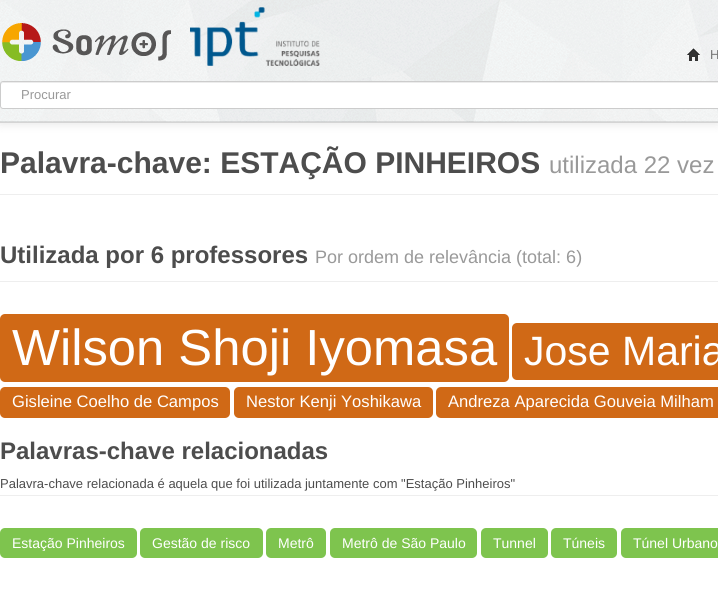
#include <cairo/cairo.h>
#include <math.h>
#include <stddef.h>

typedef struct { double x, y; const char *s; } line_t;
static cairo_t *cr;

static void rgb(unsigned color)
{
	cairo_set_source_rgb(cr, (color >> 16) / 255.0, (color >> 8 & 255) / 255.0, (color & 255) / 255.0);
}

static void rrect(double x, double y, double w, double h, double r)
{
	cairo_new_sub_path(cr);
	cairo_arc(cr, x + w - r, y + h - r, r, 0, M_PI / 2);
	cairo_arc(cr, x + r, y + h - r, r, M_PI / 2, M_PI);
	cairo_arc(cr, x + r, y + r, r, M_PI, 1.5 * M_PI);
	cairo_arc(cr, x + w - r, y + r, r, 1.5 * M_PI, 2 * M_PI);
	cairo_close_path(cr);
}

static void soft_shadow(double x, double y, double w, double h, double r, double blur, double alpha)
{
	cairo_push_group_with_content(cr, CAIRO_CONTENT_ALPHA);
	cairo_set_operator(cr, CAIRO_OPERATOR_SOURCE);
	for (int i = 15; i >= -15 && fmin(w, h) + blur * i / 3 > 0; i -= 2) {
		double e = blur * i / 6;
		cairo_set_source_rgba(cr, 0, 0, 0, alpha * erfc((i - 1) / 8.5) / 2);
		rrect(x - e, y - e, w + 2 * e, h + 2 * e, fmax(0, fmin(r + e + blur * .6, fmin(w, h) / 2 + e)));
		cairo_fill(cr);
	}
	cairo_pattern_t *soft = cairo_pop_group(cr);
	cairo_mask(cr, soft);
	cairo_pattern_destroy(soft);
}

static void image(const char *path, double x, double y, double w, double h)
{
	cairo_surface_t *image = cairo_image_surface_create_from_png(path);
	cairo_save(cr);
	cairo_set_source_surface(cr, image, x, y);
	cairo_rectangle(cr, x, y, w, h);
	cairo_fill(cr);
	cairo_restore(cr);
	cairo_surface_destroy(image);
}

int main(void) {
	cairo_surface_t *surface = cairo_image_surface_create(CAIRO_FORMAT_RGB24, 718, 606);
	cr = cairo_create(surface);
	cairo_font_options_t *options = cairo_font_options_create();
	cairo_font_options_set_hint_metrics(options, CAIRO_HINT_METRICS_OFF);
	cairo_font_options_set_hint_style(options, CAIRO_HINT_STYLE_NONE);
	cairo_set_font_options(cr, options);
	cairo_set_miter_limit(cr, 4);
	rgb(0xffffff);
	cairo_paint(cr);
	rgb(0x000000);
	soft_shadow(0, 1, 718, 123, 0, 5, 0.1);
	image("img/1.png", 0, 0, 718, 122);
	cairo_set_source_rgba(cr, 0, 0, 0, 0.1);
	cairo_rectangle(cr, 0, 121, 718, 1);
	cairo_fill(cr);
	rgb(0xd4d4d4);
	cairo_rectangle(cr, 0, 122, 718, 1);
	cairo_fill(cr);
	image("img/2.png", 2, 23, 169, 38);
	image("img/3.png", 190, 7, 130, 59);
	image("img/4.png", 687, 48, 13, 13);
	rgb(0xffffff);
	rrect(0, 81, 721, 28, 3);
	cairo_fill(cr);
	rgb(0xececec);
	cairo_new_path(cr);
	cairo_move_to(cr, 3, 83);
	cairo_line_to(cr, 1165, 83);
	cairo_curve_to(cr, 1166, 83, 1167, 84, 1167, 85);
	cairo_line_to(cr, 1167, 83);
	cairo_line_to(cr, 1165, 82);
	cairo_line_to(cr, 3, 82);
	cairo_curve_to(cr, 2, 82, 1, 83, 1, 84);
	cairo_line_to(cr, 1, 85);
	cairo_curve_to(cr, 1, 84, 2, 83, 3, 83);
	cairo_close_path(cr);
	cairo_fill(cr);
	rrect(0.5, 81.5, 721, 27, 2.5);
	rgb(0xcccccc);
	cairo_set_line_width(cr, 1);
	cairo_stroke(cr);
	rgb(0xeeeeee);
	cairo_rectangle(cr, 0, 194, 718, 1);
	cairo_fill(cr);
	cairo_rectangle(cr, 0, 281, 718, 1);
	cairo_fill(cr);
	rgb(0xd06916);
	rrect(0, 314, 509, 68, 5);
	cairo_fill(cr);
	rrect(512, 323, 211, 57, 5);
	cairo_fill(cr);
	rrect(0, 387, 230, 31, 5);
	cairo_fill(cr);
	rrect(234, 387, 199, 31, 5);
	cairo_fill(cr);
	rrect(436, 387, 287, 31, 5);
	cairo_fill(cr);
	rgb(0xeeeeee);
	cairo_rectangle(cr, 0, 495, 718, 1);
	cairo_fill(cr);
	rgb(0x7ec44e);
	rrect(0, 528, 137, 30, 5);
	cairo_fill(cr);
	rrect(140, 528, 123, 30, 5);
	cairo_fill(cr);
	rrect(266, 528, 60, 30, 5);
	cairo_fill(cr);
	rrect(330, 528, 147, 30, 5);
	cairo_fill(cr);
	rrect(481, 528, 67, 30, 5);
	cairo_fill(cr);
	rrect(551, 528, 66, 30, 5);
	cairo_fill(cr);
	rrect(621, 528, 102, 30, 5);
	cairo_fill(cr);
	cairo_select_font_face(cr, "Liberation Sans", CAIRO_FONT_SLANT_NORMAL, CAIRO_FONT_WEIGHT_NORMAL);
	cairo_set_font_size(cr, 13);
	rgb(0x777777);
	cairo_move_to(cr, 710, 59);
	cairo_show_text(cr, "H");
	rgb(0x999999);
	cairo_move_to(cr, 21, 99);
	cairo_show_text(cr, "Procurar");
	cairo_select_font_face(cr, "Liberation Sans", CAIRO_FONT_SLANT_NORMAL, CAIRO_FONT_WEIGHT_BOLD);
	cairo_set_font_size(cr, 30);
	rgb(0x4d4d4d);
	cairo_move_to(cr, 0, 173);
	cairo_show_text(cr, "Palavra-chave: ESTAÇÃO PINHEIROS");
	cairo_select_font_face(cr, "Liberation Sans", CAIRO_FONT_SLANT_NORMAL, CAIRO_FONT_WEIGHT_NORMAL);
	cairo_set_font_size(cr, 24);
	rgb(0x999999);
	cairo_move_to(cr, 549, 173);
	cairo_show_text(cr, "utilizada 22 vez");
	cairo_select_font_face(cr, "Liberation Sans", CAIRO_FONT_SLANT_NORMAL, CAIRO_FONT_WEIGHT_BOLD);
	rgb(0x4d4d4d);
	cairo_move_to(cr, 0, 263);
	cairo_show_text(cr, "Utilizada por 6 professores");
	cairo_select_font_face(cr, "Liberation Sans", CAIRO_FONT_SLANT_NORMAL, CAIRO_FONT_WEIGHT_NORMAL);
	cairo_set_font_size(cr, 18);
	rgb(0x999999);
	cairo_move_to(cr, 315, 263);
	cairo_show_text(cr, "Por ordem de relevância (total: 6)");
	cairo_set_font_size(cr, 50.75);
	rgb(0xffffff);
	cairo_move_to(cr, 12, 365);
	cairo_show_text(cr, "Wilson Shoji Iyomasa");
	cairo_set_font_size(cr, 41);
	cairo_move_to(cr, 524, 365);
	cairo_show_text(cr, "Jose Maria");
	cairo_set_font_size(cr, 16.6);
	{
		static const line_t items[] = {
			{12, 407, "Gisleine Coelho de Campos"},
			{246, 407, "Nestor Kenji Yoshikawa"},
			{448, 407, "Andreza Aparecida Gouveia Milham"},
		};
		for (size_t i = 0; i < sizeof items / sizeof *items; i++) {
			cairo_move_to(cr, items[i].x, items[i].y);
			cairo_show_text(cr, items[i].s);
		}
	}
	cairo_select_font_face(cr, "Liberation Sans", CAIRO_FONT_SLANT_NORMAL, CAIRO_FONT_WEIGHT_BOLD);
	cairo_set_font_size(cr, 24);
	rgb(0x4d4d4d);
	cairo_move_to(cr, 0, 459);
	cairo_show_text(cr, "Palavras-chave relacionadas");
	cairo_select_font_face(cr, "Liberation Sans", CAIRO_FONT_SLANT_NORMAL, CAIRO_FONT_WEIGHT_NORMAL);
	cairo_set_font_size(cr, 13);
	cairo_move_to(cr, 0, 488);
	cairo_show_text(cr, "Palavra-chave relacionada é aquela que foi utilizada juntamente com \"Estação Pinheiros\"");
	cairo_set_font_size(cr, 14);
	rgb(0xffffff);
	{
		static const line_t items[] = {
			{12, 548, "Estação Pinheiros"},
			{152, 548, "Gestão de risco"},
			{278, 548, "Metrô"},
			{342, 548, "Metrô de São Paulo"},
			{493, 548, "Tunnel"},
			{563, 548, "Túneis"},
			{633, 548, "Túnel Urbano"},
		};
		for (size_t i = 0; i < sizeof items / sizeof *items; i++) {
			cairo_move_to(cr, items[i].x, items[i].y);
			cairo_show_text(cr, items[i].s);
		}
	}
	cairo_surface_write_to_png(surface, "page.png");
	cairo_font_options_destroy(options);
	cairo_destroy(cr);
	cairo_surface_destroy(surface);
	return 0;
}
